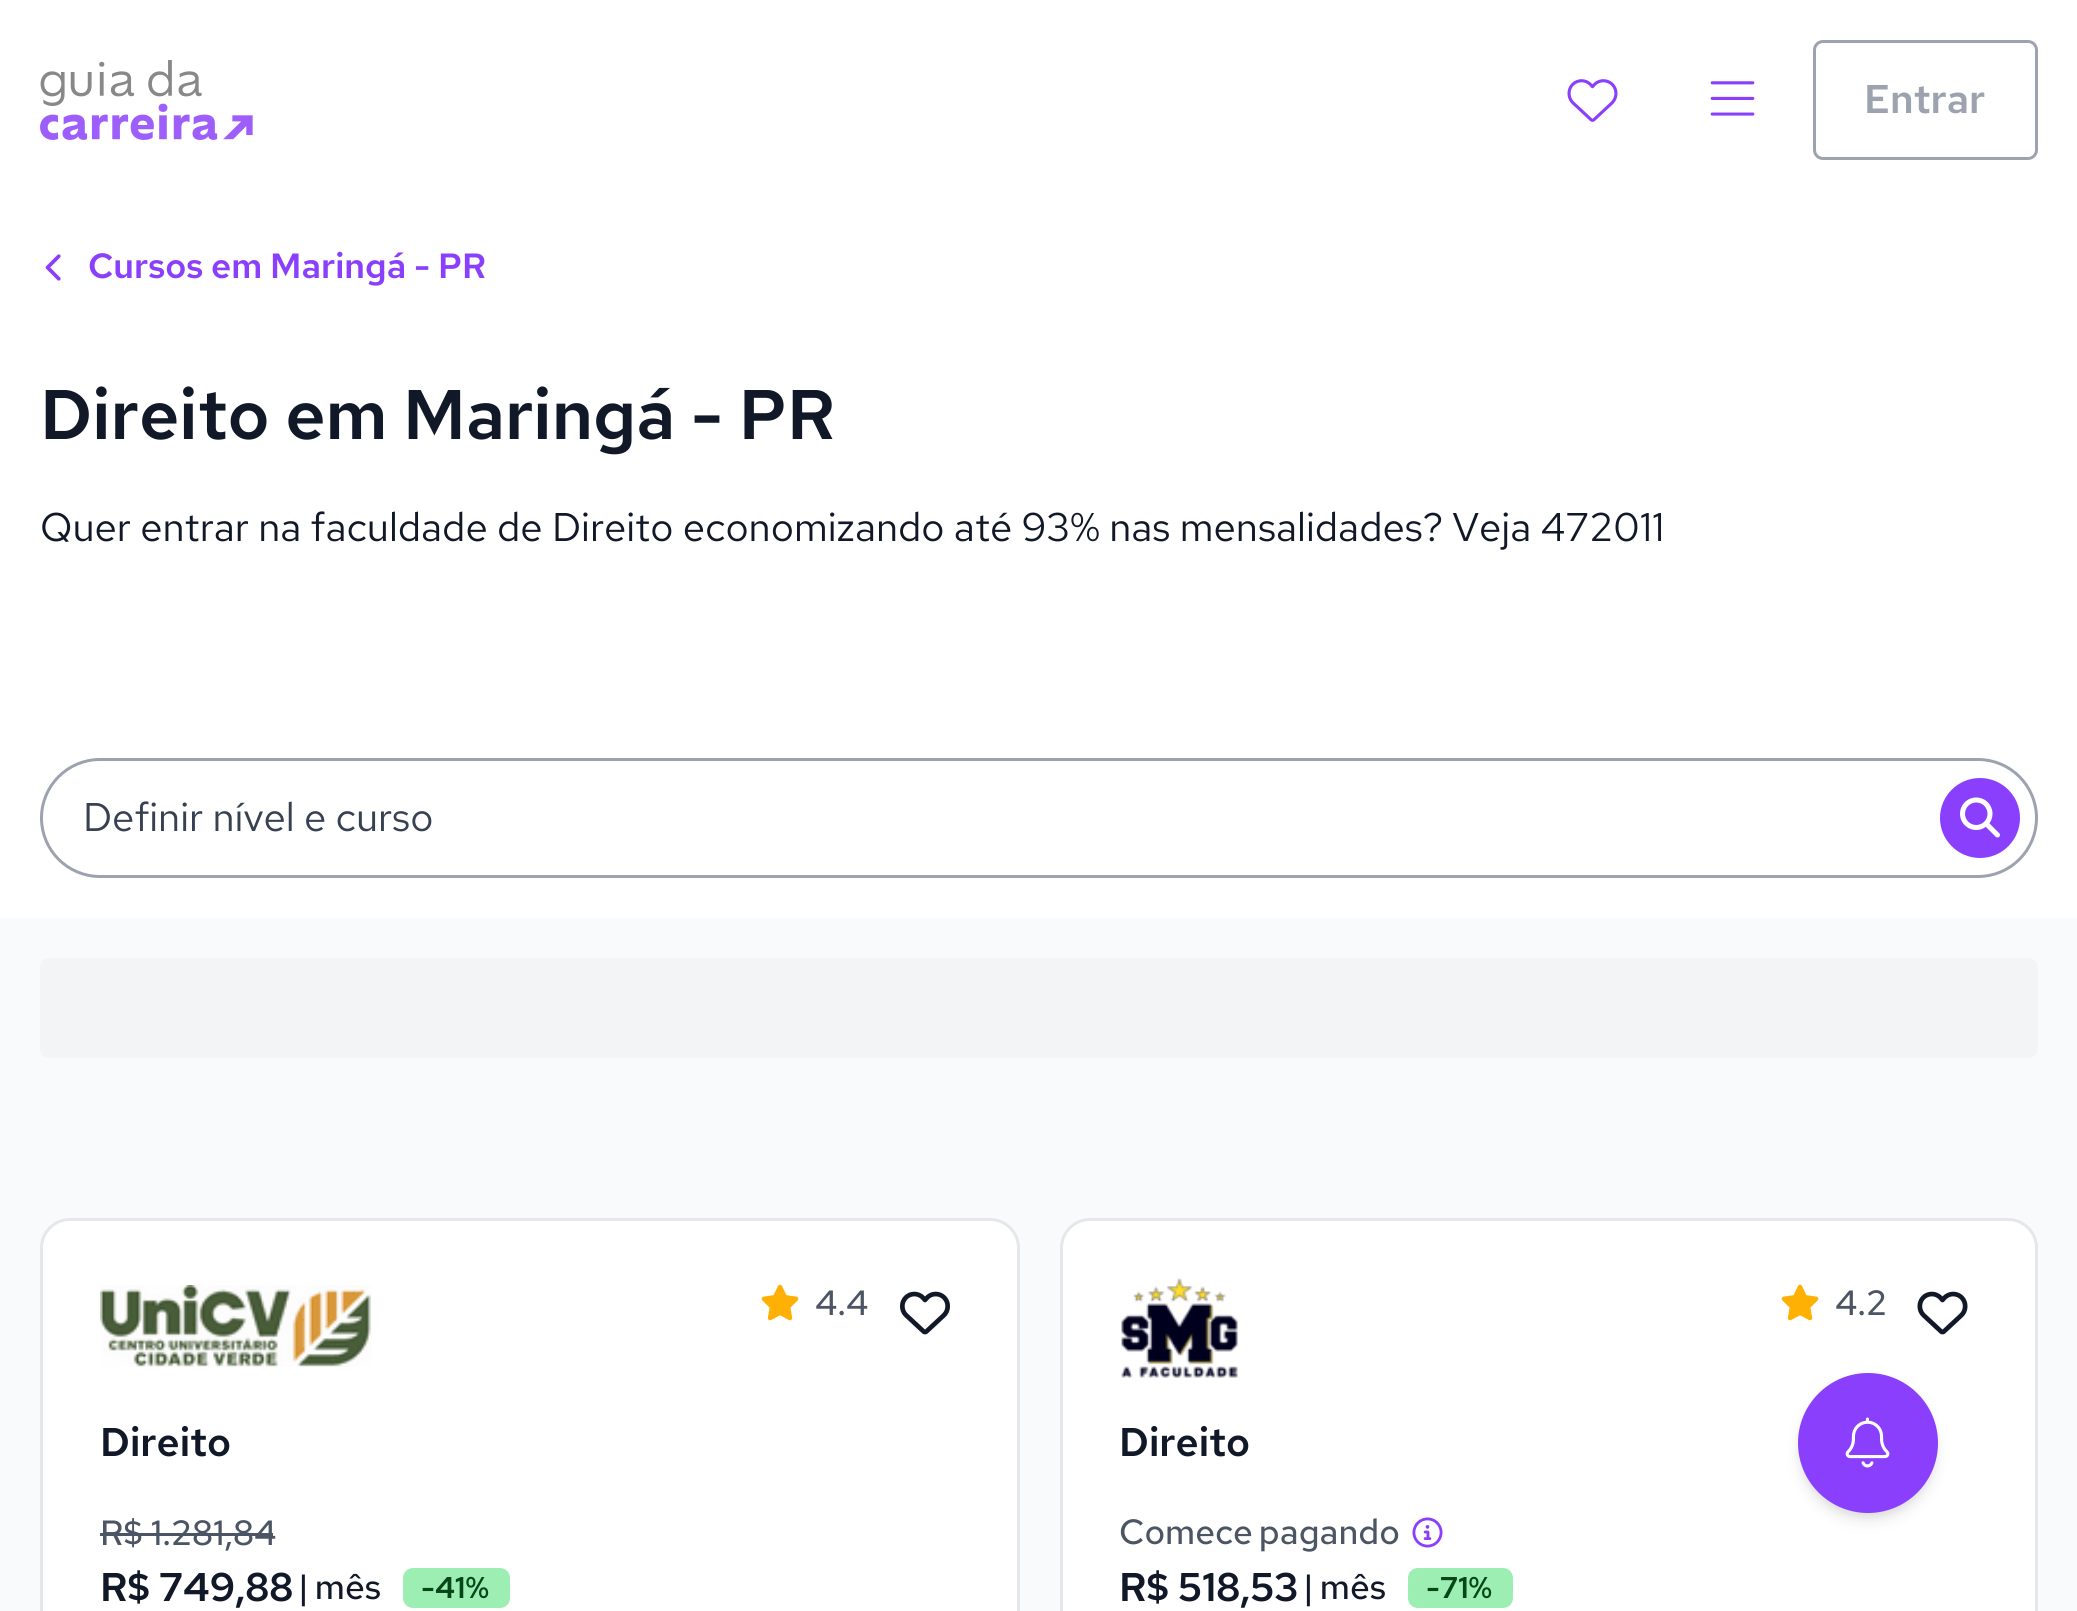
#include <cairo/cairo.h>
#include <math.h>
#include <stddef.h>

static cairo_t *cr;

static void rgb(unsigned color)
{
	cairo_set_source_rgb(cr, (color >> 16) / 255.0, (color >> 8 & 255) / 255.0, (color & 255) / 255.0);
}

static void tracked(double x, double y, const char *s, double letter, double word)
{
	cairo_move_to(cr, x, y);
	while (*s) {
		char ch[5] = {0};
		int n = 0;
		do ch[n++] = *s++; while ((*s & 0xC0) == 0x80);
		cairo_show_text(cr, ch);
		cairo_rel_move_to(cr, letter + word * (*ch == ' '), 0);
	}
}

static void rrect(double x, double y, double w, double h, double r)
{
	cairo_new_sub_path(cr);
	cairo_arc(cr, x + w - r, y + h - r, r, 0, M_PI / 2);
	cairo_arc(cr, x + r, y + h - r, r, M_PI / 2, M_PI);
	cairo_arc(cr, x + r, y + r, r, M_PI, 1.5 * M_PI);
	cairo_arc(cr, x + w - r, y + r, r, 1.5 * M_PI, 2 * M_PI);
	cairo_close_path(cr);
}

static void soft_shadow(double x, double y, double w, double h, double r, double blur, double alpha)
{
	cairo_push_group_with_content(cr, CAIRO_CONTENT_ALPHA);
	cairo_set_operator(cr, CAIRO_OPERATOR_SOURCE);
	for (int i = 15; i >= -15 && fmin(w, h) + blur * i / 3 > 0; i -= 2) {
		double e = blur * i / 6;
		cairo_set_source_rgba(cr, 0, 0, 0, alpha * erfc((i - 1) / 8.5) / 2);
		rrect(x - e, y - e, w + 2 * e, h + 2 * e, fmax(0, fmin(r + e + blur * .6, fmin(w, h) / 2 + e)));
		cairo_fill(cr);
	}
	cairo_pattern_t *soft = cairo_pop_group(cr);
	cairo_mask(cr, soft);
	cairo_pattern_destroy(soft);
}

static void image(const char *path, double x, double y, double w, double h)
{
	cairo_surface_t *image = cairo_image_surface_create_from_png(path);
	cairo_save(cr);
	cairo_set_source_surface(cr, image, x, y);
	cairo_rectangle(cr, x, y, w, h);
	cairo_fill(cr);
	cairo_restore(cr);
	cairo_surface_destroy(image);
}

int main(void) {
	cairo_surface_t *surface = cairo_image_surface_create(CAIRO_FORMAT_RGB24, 2077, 1611);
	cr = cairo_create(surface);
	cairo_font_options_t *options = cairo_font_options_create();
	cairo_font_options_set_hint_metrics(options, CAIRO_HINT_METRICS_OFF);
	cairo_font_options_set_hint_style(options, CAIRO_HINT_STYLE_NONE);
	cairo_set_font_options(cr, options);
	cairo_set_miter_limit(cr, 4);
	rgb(0xf9fafb);
	cairo_paint(cr);
	rgb(0xffffff);
	cairo_rectangle(cr, 0, 0, 2077, 918);
	cairo_fill(cr);
	image("img/1.png", 40, 60, 213, 80);
	image("img/2.png", 1567, 79, 51, 43);
	image("img/3.png", 1710, 81, 45, 35);
	rrect(1814.5, 41.5, 222, 117, 8.5);
	rgb(0x9ca3af);
	cairo_set_line_width(cr, 3);
	cairo_stroke(cr);
	image("img/4.png", 45, 254, 16, 27);
	rrect(41.5, 759.5, 1995, 117, 58.5);
	cairo_stroke(cr);
	rgb(0x8a3ffc);
	cairo_arc(cr, 1980, 818, 40, 0, 2 * M_PI);
	cairo_fill(cr);
	image("img/5.png", 1960, 797, 40, 41);
	rgb(0xf3f4f6);
	rrect(40, 958, 1998, 100, 10);
	cairo_fill(cr);
	rgb(0xffffff);
	rrect(41.5, 1219.5, 977, 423, 28.5);
	cairo_fill_preserve(cr);
	rgb(0xe5e7eb);
	cairo_stroke(cr);
	image("img/6.png", 100, 1285, 272, 82);
	image("img/7.png", 761, 1284, 38, 37);
	image("img/8.png", 900, 1291, 50, 44);
	rgb(0x4b5563);
	cairo_rectangle(cr, 100, 1533, 173, 3);
	cairo_fill(cr);
	rgb(0x9deeb2);
	rrect(403, 1568, 107, 40, 10);
	cairo_fill(cr);
	rgb(0xffffff);
	rrect(1061.5, 1219.5, 975, 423, 28.5);
	cairo_fill_preserve(cr);
	rgb(0xe5e7eb);
	cairo_stroke(cr);
	image("img/9.png", 1121, 1277, 117, 101);
	image("img/7.png", 1781, 1284, 38, 37);
	image("img/10.png", 1917, 1291, 51, 44);
	image("img/11.png", 1412, 1517, 31, 31);
	rgb(0x9deeb2);
	rrect(1408, 1568, 105, 40, 10);
	cairo_fill(cr);
	rgb(0x000000);
	soft_shadow(1803, 1383, 130, 130, 65, 5, 0.1);
	soft_shadow(1800, 1385, 135, 135, 67.5, 7.5, 0.1);
	rgb(0x8a3ffc);
	cairo_arc(cr, 1868, 1443, 70, 0, 2 * M_PI);
	cairo_fill(cr);
	image("img/12.png", 1845, 1417, 45, 51);
	cairo_select_font_face(cr, "Red Hat Text SemiBold", CAIRO_FONT_SLANT_NORMAL, CAIRO_FONT_WEIGHT_NORMAL);
	cairo_set_font_size(cr, 40);
	rgb(0x9ca3af);
	cairo_move_to(cr, 1864, 113);
	cairo_show_text(cr, "Entrar");
	cairo_set_font_size(cr, 35);
	rgb(0x8a3ffc);
	cairo_move_to(cr, 88, 278);
	cairo_show_text(cr, "Cursos em Maringá - PR");
	cairo_set_font_size(cr, 70);
	rgb(0x111827);
	cairo_move_to(cr, 40, 439);
	cairo_show_text(cr, "Direito em Maringá - PR");
	cairo_select_font_face(cr, "Red Hat Text", CAIRO_FONT_SLANT_NORMAL, CAIRO_FONT_WEIGHT_NORMAL);
	cairo_set_font_size(cr, 40);
	cairo_move_to(cr, 40, 541);
	cairo_show_text(cr, "Quer entrar na faculdade de Direito economizando até 93% nas mensalidades? Veja 472011");
	rgb(0x374151);
	cairo_move_to(cr, 83, 831);
	cairo_show_text(cr, "Definir nível e curso");
	cairo_select_font_face(cr, "Red Hat Text Medium", CAIRO_FONT_SLANT_NORMAL, CAIRO_FONT_WEIGHT_NORMAL);
	cairo_set_font_size(cr, 35);
	rgb(0x4b5563);
	cairo_move_to(cr, 815, 1315);
	cairo_show_text(cr, "4.4");
	cairo_select_font_face(cr, "Red Hat Text SemiBold", CAIRO_FONT_SLANT_NORMAL, CAIRO_FONT_WEIGHT_NORMAL);
	cairo_set_font_size(cr, 40);
	rgb(0x111827);
	cairo_move_to(cr, 100, 1456);
	cairo_show_text(cr, "Direito");
	cairo_select_font_face(cr, "Red Hat Text Medium", CAIRO_FONT_SLANT_NORMAL, CAIRO_FONT_WEIGHT_NORMAL);
	cairo_set_font_size(cr, 35);
	rgb(0x4b5563);
	cairo_move_to(cr, 100, 1545);
	cairo_show_text(cr, "R$ 1.281,84");
	cairo_select_font_face(cr, "Red Hat Text SemiBold", CAIRO_FONT_SLANT_NORMAL, CAIRO_FONT_WEIGHT_NORMAL);
	cairo_set_font_size(cr, 40);
	rgb(0x111827);
	cairo_move_to(cr, 100, 1601);
	cairo_show_text(cr, "R$ 749,88");
	cairo_select_font_face(cr, "Red Hat Text Medium", CAIRO_FONT_SLANT_NORMAL, CAIRO_FONT_WEIGHT_NORMAL);
	cairo_set_font_size(cr, 35);
	tracked(298, 1599, "| mês", 0, -2);
	cairo_select_font_face(cr, "Red Hat Text SemiBold", CAIRO_FONT_SLANT_NORMAL, CAIRO_FONT_WEIGHT_NORMAL);
	cairo_set_font_size(cr, 30);
	rgb(0x054719);
	cairo_move_to(cr, 421, 1598);
	cairo_show_text(cr, "-41%");
	cairo_select_font_face(cr, "Red Hat Text Medium", CAIRO_FONT_SLANT_NORMAL, CAIRO_FONT_WEIGHT_NORMAL);
	cairo_set_font_size(cr, 35);
	rgb(0x4b5563);
	cairo_move_to(cr, 1835, 1315);
	cairo_show_text(cr, "4.2");
	cairo_select_font_face(cr, "Red Hat Text SemiBold", CAIRO_FONT_SLANT_NORMAL, CAIRO_FONT_WEIGHT_NORMAL);
	cairo_set_font_size(cr, 40);
	rgb(0x111827);
	cairo_move_to(cr, 1119, 1456);
	cairo_show_text(cr, "Direito");
	cairo_select_font_face(cr, "Red Hat Text Medium", CAIRO_FONT_SLANT_NORMAL, CAIRO_FONT_WEIGHT_NORMAL);
	cairo_set_font_size(cr, 35);
	rgb(0x4b5563);
	tracked(1119, 1544, "Comece pagando", 0, -2);
	cairo_select_font_face(cr, "Red Hat Text SemiBold", CAIRO_FONT_SLANT_NORMAL, CAIRO_FONT_WEIGHT_NORMAL);
	cairo_set_font_size(cr, 40);
	rgb(0x111827);
	cairo_move_to(cr, 1119, 1601);
	cairo_show_text(cr, "R$ 518,53");
	cairo_select_font_face(cr, "Red Hat Text Medium", CAIRO_FONT_SLANT_NORMAL, CAIRO_FONT_WEIGHT_NORMAL);
	cairo_set_font_size(cr, 35);
	tracked(1303, 1599, "| mês", 0, -2);
	cairo_select_font_face(cr, "Red Hat Text SemiBold", CAIRO_FONT_SLANT_NORMAL, CAIRO_FONT_WEIGHT_NORMAL);
	cairo_set_font_size(cr, 30);
	rgb(0x054719);
	cairo_move_to(cr, 1426, 1598);
	cairo_show_text(cr, "-71%");
	cairo_surface_write_to_png(surface, "page.png");
	cairo_font_options_destroy(options);
	cairo_destroy(cr);
	cairo_surface_destroy(surface);
	return 0;
}
